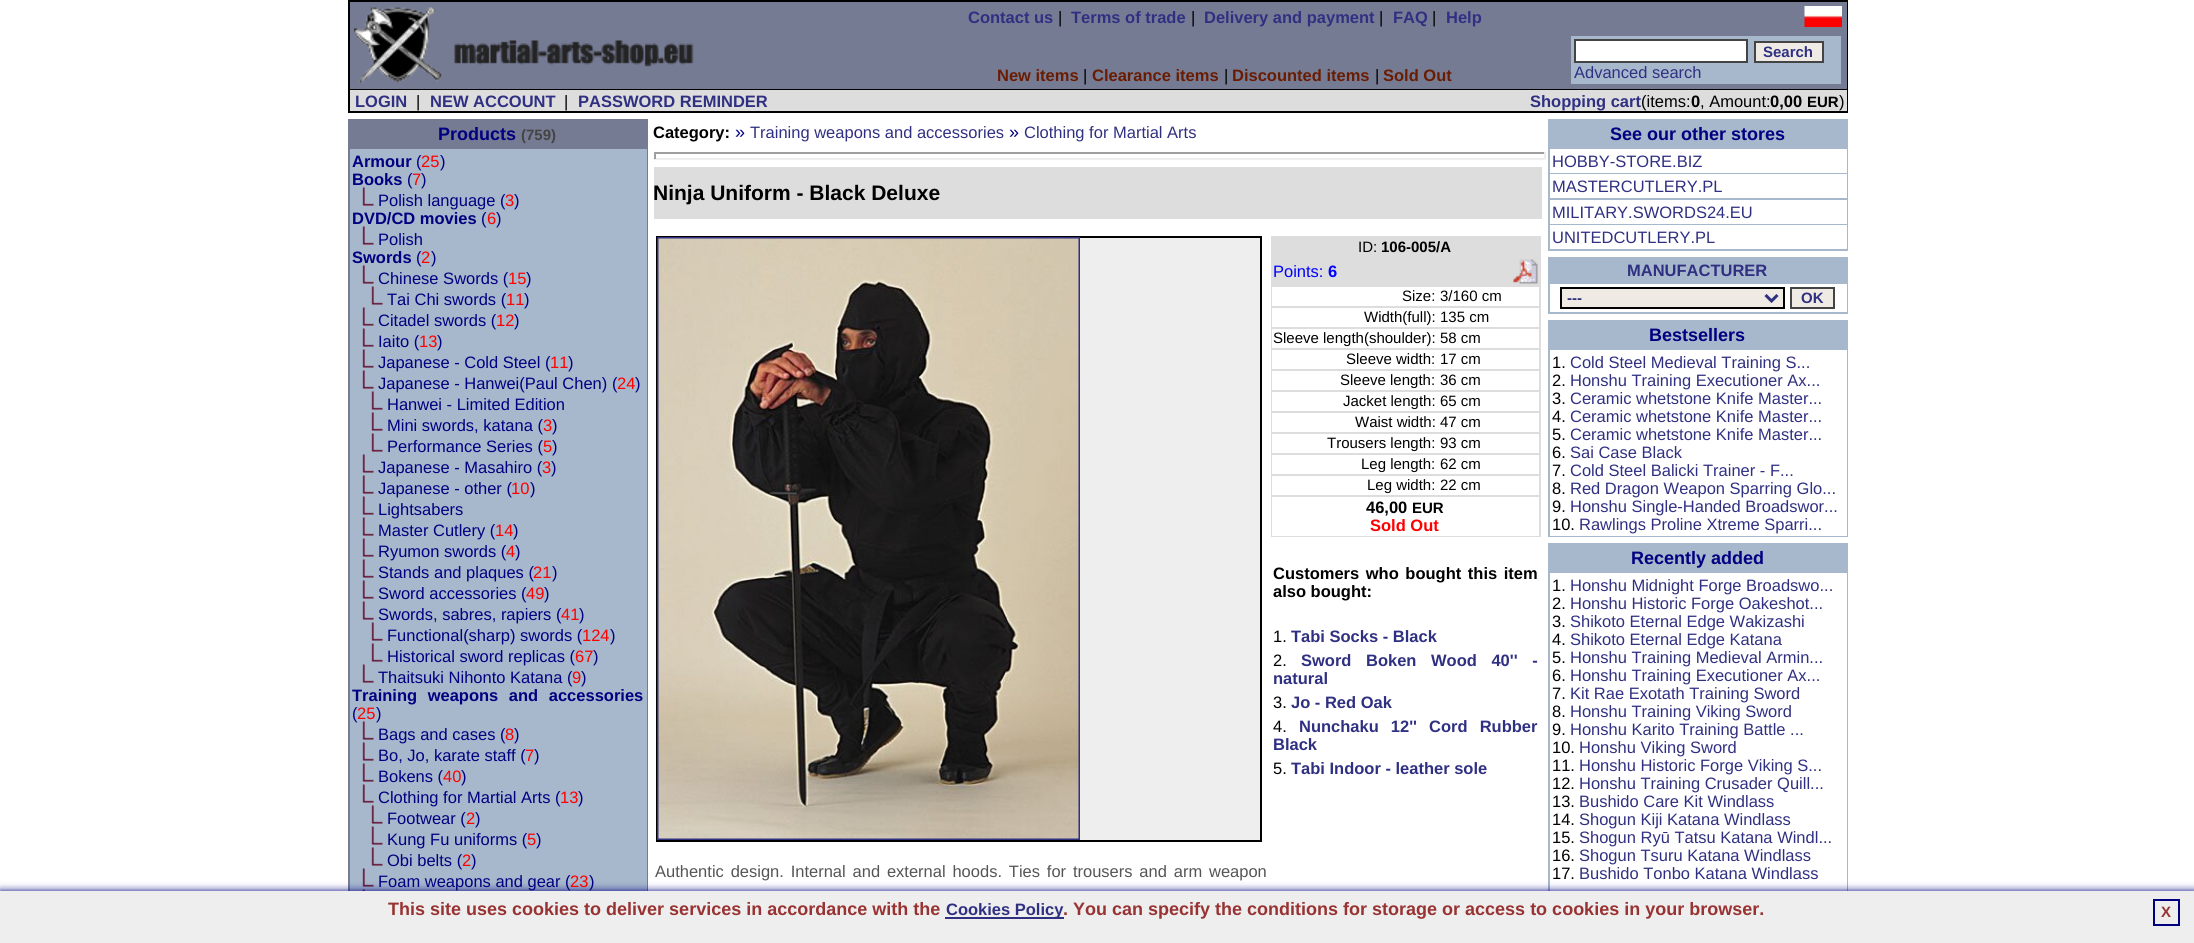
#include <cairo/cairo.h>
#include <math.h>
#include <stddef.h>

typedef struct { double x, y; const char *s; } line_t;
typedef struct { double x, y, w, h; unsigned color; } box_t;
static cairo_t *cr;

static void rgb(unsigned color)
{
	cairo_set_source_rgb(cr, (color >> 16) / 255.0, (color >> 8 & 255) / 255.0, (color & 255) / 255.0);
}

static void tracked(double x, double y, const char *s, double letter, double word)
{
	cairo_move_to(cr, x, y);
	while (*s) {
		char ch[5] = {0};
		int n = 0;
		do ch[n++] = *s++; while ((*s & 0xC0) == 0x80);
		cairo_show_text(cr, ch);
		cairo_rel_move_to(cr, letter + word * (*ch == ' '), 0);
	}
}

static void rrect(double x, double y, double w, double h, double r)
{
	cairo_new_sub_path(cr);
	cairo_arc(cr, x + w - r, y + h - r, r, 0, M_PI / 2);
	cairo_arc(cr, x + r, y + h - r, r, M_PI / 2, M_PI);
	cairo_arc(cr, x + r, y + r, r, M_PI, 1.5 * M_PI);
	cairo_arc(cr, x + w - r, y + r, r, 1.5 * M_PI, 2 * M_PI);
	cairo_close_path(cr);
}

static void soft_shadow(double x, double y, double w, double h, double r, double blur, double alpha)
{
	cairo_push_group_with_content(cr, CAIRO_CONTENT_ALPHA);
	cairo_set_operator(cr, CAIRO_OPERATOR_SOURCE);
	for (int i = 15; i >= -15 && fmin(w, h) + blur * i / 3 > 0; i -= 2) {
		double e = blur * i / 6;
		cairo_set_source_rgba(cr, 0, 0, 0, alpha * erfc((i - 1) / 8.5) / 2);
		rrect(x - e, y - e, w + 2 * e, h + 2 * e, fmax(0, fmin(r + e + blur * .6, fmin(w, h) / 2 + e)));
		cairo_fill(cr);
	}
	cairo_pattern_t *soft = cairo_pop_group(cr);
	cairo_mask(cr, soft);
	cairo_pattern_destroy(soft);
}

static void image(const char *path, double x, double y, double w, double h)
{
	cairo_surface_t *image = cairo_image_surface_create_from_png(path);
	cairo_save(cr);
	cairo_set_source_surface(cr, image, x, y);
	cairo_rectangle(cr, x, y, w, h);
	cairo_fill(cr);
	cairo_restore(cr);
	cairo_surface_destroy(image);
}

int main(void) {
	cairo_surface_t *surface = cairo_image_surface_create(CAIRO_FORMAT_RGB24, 2194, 943);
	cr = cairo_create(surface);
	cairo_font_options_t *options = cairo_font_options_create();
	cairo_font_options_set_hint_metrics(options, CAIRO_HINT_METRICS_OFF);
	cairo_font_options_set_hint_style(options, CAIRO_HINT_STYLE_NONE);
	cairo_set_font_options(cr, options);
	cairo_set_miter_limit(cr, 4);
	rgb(0xffffff);
	cairo_paint(cr);
	rgb(0x000000);
	cairo_rectangle(cr, 348, 0, 1500, 113);
	cairo_fill(cr);
	rgb(0x767b94);
	cairo_rectangle(cr, 350, 2, 1497, 87);
	cairo_fill(cr);
	image("img/1.png", 354, 7, 340, 76);
	image("img/2.png", 1804, 6, 38, 21);
	rgb(0xa7b7cc);
	cairo_rectangle(cr, 1571, 36, 270, 48);
	cairo_fill(cr);
	rgb(0xffffff);
	cairo_rectangle(cr, 1575, 40, 172, 22);
	cairo_fill_preserve(cr);
	rgb(0x444444);
	cairo_stroke(cr);
	rgb(0xefebe4);
	cairo_rectangle(cr, 1755, 42, 68, 20);
	cairo_fill_preserve(cr);
	rgb(0x444444);
	cairo_stroke(cr);
	{
		static const box_t items[] = {
			{350, 90, 1497, 21, 0xdddddd},
			{348, 119, 300, 772, 0x767b94},
			{350, 149, 297, 742, 0xa7b7cc},
		};
		for (size_t i = 0; i < sizeof items / sizeof *items; i++) {
			rgb(items[i].color);
			cairo_rectangle(cr, items[i].x, items[i].y, items[i].w, items[i].h);
			cairo_fill(cr);
		}
	}
	image("img/3.png", 362, 187, 12, 19);
	image("img/3.png", 362, 226, 12, 19);
	image("img/3.png", 362, 265, 12, 19);
	image("img/3.png", 362, 307, 12, 19);
	image("img/3.png", 362, 328, 12, 19);
	image("img/3.png", 362, 349, 12, 19);
	image("img/3.png", 362, 370, 12, 19);
	image("img/3.png", 371, 412, 12, 19);
	image("img/3.png", 371, 433, 12, 19);
	image("img/3.png", 362, 454, 12, 19);
	image("img/3.png", 362, 475, 12, 19);
	image("img/3.png", 362, 496, 12, 19);
	image("img/3.png", 362, 517, 12, 19);
	image("img/3.png", 362, 538, 12, 19);
	image("img/3.png", 362, 559, 12, 19);
	image("img/3.png", 362, 580, 12, 19);
	image("img/3.png", 362, 601, 12, 19);
	image("img/3.png", 371, 643, 12, 19);
	image("img/3.png", 362, 664, 12, 19);
	image("img/3.png", 362, 721, 12, 19);
	image("img/3.png", 362, 742, 12, 19);
	image("img/3.png", 362, 763, 12, 19);
	image("img/3.png", 362, 784, 12, 19);
	image("img/3.png", 371, 826, 12, 19);
	image("img/3.png", 371, 847, 12, 19);
	image("img/3.png", 362, 868, 12, 19);
	image("img/4.png", 362, 889, 3, 2);
	{
		static const box_t items[] = {
			{654, 152, 891, 2, 0x9f9f9f},
			{1544, 152, 2, 7, 0xeeeeee},
			{654, 158, 891, 2, 0xeeeeee},
			{654, 152, 2, 7, 0x9f9f9f},
			{654, 167, 888, 52, 0xdddddd},
			{1271, 236, 270, 301, 0xdddddd},
		};
		for (size_t i = 0; i < sizeof items / sizeof *items; i++) {
			rgb(items[i].color);
			cairo_rectangle(cr, items[i].x, items[i].y, items[i].w, items[i].h);
			cairo_fill(cr);
		}
	}
	image("img/5.png", 1513, 259, 25, 25);
	{
		static const box_t items[] = {
			{1272, 287, 267, 19, 0xffffff},
			{1272, 308, 267, 19, 0xffffff},
			{1272, 329, 267, 19, 0xffffff},
			{1272, 350, 267, 19, 0xffffff},
			{1272, 371, 267, 19, 0xffffff},
			{1272, 392, 267, 19, 0xffffff},
			{1272, 413, 267, 19, 0xffffff},
			{1272, 434, 267, 19, 0xffffff},
			{1272, 455, 267, 19, 0xffffff},
			{1272, 476, 267, 19, 0xffffff},
			{1272, 497, 267, 39, 0xffffff},
			{1080, 238, 180, 602, 0xeeeeee},
		};
		for (size_t i = 0; i < sizeof items / sizeof *items; i++) {
			rgb(items[i].color);
			cairo_rectangle(cr, items[i].x, items[i].y, items[i].w, items[i].h);
			cairo_fill(cr);
		}
	}
	cairo_rectangle(cr, 657, 237, 604, 604);
	rgb(0x000000);
	cairo_stroke(cr);
	cairo_rectangle(cr, 658, 238, 421, 601);
	rgb(0x303082);
	cairo_stroke(cr);
	image("img/6.png", 658, 238, 421, 601);
	{
		static const box_t items[] = {
			{1548, 119, 300, 132, 0xa7b7cc},
			{1550, 149, 297, 24, 0xffffff},
			{1550, 174, 297, 24, 0xffffff},
			{1550, 200, 297, 24, 0xffffff},
			{1550, 225, 297, 24, 0xffffff},
			{1548, 257, 300, 57, 0xa7b7cc},
			{1550, 284, 297, 28, 0xffffff},
		};
		for (size_t i = 0; i < sizeof items / sizeof *items; i++) {
			rgb(items[i].color);
			cairo_rectangle(cr, items[i].x, items[i].y, items[i].w, items[i].h);
			cairo_fill(cr);
		}
	}
	rgb(0xefebe4);
	cairo_rectangle(cr, 1561, 288, 223, 20);
	cairo_fill_preserve(cr);
	rgb(0x000000);
	cairo_stroke(cr);
	cairo_new_path(cr);
	cairo_move_to(cr, 1765.5, 295);
	cairo_line_to(cr, 1771.5, 301);
	cairo_line_to(cr, 1777.5, 295);
	rgb(0x303082);
	cairo_set_line_width(cr, 3);
	cairo_stroke(cr);
	rgb(0xefebe4);
	cairo_rectangle(cr, 1791, 288, 43, 20);
	cairo_fill_preserve(cr);
	rgb(0x444444);
	cairo_set_line_width(cr, 2);
	cairo_stroke(cr);
	{
		static const box_t items[] = {
			{1548, 320, 300, 217, 0xa7b7cc},
			{1550, 350, 297, 186, 0xffffff},
			{1548, 543, 300, 348, 0xa7b7cc},
			{1550, 573, 297, 318, 0xffffff},
		};
		for (size_t i = 0; i < sizeof items / sizeof *items; i++) {
			rgb(items[i].color);
			cairo_rectangle(cr, items[i].x, items[i].y, items[i].w, items[i].h);
			cairo_fill(cr);
		}
	}
	rgb(0x000080);
	soft_shadow(0, 891, 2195, 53, 0, 4, 1);
	rgb(0xeeeeee);
	cairo_rectangle(cr, 0, 891, 2194, 52);
	cairo_fill(cr);
	rgb(0x303082);
	cairo_rectangle(cr, 945, 917, 119, 2);
	cairo_fill(cr);
	cairo_rectangle(cr, 2154, 900, 25, 25);
	rgb(0x000080);
	cairo_stroke(cr);
	cairo_select_font_face(cr, "Liberation Sans", CAIRO_FONT_SLANT_NORMAL, CAIRO_FONT_WEIGHT_BOLD);
	cairo_set_font_size(cr, 16.5);
	rgb(0x303082);
	cairo_move_to(cr, 968, 23);
	cairo_show_text(cr, "Contact us");
	cairo_select_font_face(cr, "Liberation Sans", CAIRO_FONT_SLANT_NORMAL, CAIRO_FONT_WEIGHT_NORMAL);
	rgb(0x000000);
	cairo_move_to(cr, 1058, 23);
	cairo_show_text(cr, "|");
	cairo_select_font_face(cr, "Liberation Sans", CAIRO_FONT_SLANT_NORMAL, CAIRO_FONT_WEIGHT_BOLD);
	rgb(0x303082);
	cairo_move_to(cr, 1071, 23);
	cairo_show_text(cr, "Terms of trade");
	cairo_select_font_face(cr, "Liberation Sans", CAIRO_FONT_SLANT_NORMAL, CAIRO_FONT_WEIGHT_NORMAL);
	rgb(0x000000);
	cairo_move_to(cr, 1191, 23);
	cairo_show_text(cr, "|");
	cairo_select_font_face(cr, "Liberation Sans", CAIRO_FONT_SLANT_NORMAL, CAIRO_FONT_WEIGHT_BOLD);
	rgb(0x303082);
	cairo_move_to(cr, 1204, 23);
	cairo_show_text(cr, "Delivery and payment");
	cairo_select_font_face(cr, "Liberation Sans", CAIRO_FONT_SLANT_NORMAL, CAIRO_FONT_WEIGHT_NORMAL);
	rgb(0x000000);
	cairo_move_to(cr, 1379, 23);
	cairo_show_text(cr, "|");
	cairo_select_font_face(cr, "Liberation Sans", CAIRO_FONT_SLANT_NORMAL, CAIRO_FONT_WEIGHT_BOLD);
	rgb(0x303082);
	cairo_move_to(cr, 1393, 23);
	cairo_show_text(cr, "FAQ");
	cairo_select_font_face(cr, "Liberation Sans", CAIRO_FONT_SLANT_NORMAL, CAIRO_FONT_WEIGHT_NORMAL);
	rgb(0x000000);
	cairo_move_to(cr, 1432, 23);
	cairo_show_text(cr, "|");
	cairo_select_font_face(cr, "Liberation Sans", CAIRO_FONT_SLANT_NORMAL, CAIRO_FONT_WEIGHT_BOLD);
	rgb(0x303082);
	cairo_move_to(cr, 1446, 23);
	cairo_show_text(cr, "Help");
	rgb(0x691c02);
	cairo_move_to(cr, 997, 81);
	cairo_show_text(cr, "New items");
	cairo_select_font_face(cr, "Liberation Sans", CAIRO_FONT_SLANT_NORMAL, CAIRO_FONT_WEIGHT_NORMAL);
	rgb(0x000000);
	cairo_move_to(cr, 1083, 81);
	cairo_show_text(cr, "|");
	cairo_select_font_face(cr, "Liberation Sans", CAIRO_FONT_SLANT_NORMAL, CAIRO_FONT_WEIGHT_BOLD);
	rgb(0x691c02);
	cairo_move_to(cr, 1092, 81);
	cairo_show_text(cr, "Clearance items");
	cairo_select_font_face(cr, "Liberation Sans", CAIRO_FONT_SLANT_NORMAL, CAIRO_FONT_WEIGHT_NORMAL);
	rgb(0x000000);
	cairo_move_to(cr, 1224, 81);
	cairo_show_text(cr, "|");
	cairo_select_font_face(cr, "Liberation Sans", CAIRO_FONT_SLANT_NORMAL, CAIRO_FONT_WEIGHT_BOLD);
	rgb(0x691c02);
	cairo_move_to(cr, 1232, 81);
	cairo_show_text(cr, "Discounted items");
	cairo_select_font_face(cr, "Liberation Sans", CAIRO_FONT_SLANT_NORMAL, CAIRO_FONT_WEIGHT_NORMAL);
	rgb(0x000000);
	cairo_move_to(cr, 1375, 81);
	cairo_show_text(cr, "|");
	cairo_select_font_face(cr, "Liberation Sans", CAIRO_FONT_SLANT_NORMAL, CAIRO_FONT_WEIGHT_BOLD);
	rgb(0x691c02);
	cairo_move_to(cr, 1383, 81);
	cairo_show_text(cr, "Sold Out");
	cairo_set_font_size(cr, 15);
	rgb(0x303082);
	cairo_move_to(cr, 1763, 57);
	cairo_show_text(cr, "Search");
	cairo_select_font_face(cr, "Liberation Sans", CAIRO_FONT_SLANT_NORMAL, CAIRO_FONT_WEIGHT_NORMAL);
	cairo_set_font_size(cr, 16.5);
	cairo_move_to(cr, 1574, 78);
	cairo_show_text(cr, "Advanced search");
	cairo_select_font_face(cr, "Liberation Sans", CAIRO_FONT_SLANT_NORMAL, CAIRO_FONT_WEIGHT_BOLD);
	cairo_move_to(cr, 355, 107);
	cairo_show_text(cr, "LOGIN");
	cairo_select_font_face(cr, "Liberation Sans", CAIRO_FONT_SLANT_NORMAL, CAIRO_FONT_WEIGHT_NORMAL);
	rgb(0x000000);
	cairo_move_to(cr, 416, 107);
	cairo_show_text(cr, "|");
	cairo_select_font_face(cr, "Liberation Sans", CAIRO_FONT_SLANT_NORMAL, CAIRO_FONT_WEIGHT_BOLD);
	rgb(0x303082);
	cairo_move_to(cr, 430, 107);
	cairo_show_text(cr, "NEW ACCOUNT");
	cairo_select_font_face(cr, "Liberation Sans", CAIRO_FONT_SLANT_NORMAL, CAIRO_FONT_WEIGHT_NORMAL);
	rgb(0x000000);
	cairo_move_to(cr, 564, 107);
	cairo_show_text(cr, "|");
	cairo_select_font_face(cr, "Liberation Sans", CAIRO_FONT_SLANT_NORMAL, CAIRO_FONT_WEIGHT_BOLD);
	rgb(0x303082);
	cairo_move_to(cr, 578, 107);
	cairo_show_text(cr, "PASSWORD REMINDER");
	cairo_move_to(cr, 1530, 107);
	cairo_show_text(cr, "Shopping cart");
	cairo_select_font_face(cr, "Liberation Sans", CAIRO_FONT_SLANT_NORMAL, CAIRO_FONT_WEIGHT_NORMAL);
	rgb(0x000000);
	cairo_move_to(cr, 1641, 107);
	cairo_show_text(cr, "(items:");
	cairo_select_font_face(cr, "Liberation Sans", CAIRO_FONT_SLANT_NORMAL, CAIRO_FONT_WEIGHT_BOLD);
	cairo_move_to(cr, 1691, 107);
	cairo_show_text(cr, "0");
	cairo_select_font_face(cr, "Liberation Sans", CAIRO_FONT_SLANT_NORMAL, CAIRO_FONT_WEIGHT_NORMAL);
	cairo_move_to(cr, 1700, 107);
	cairo_show_text(cr, ", Amount:");
	cairo_select_font_face(cr, "Liberation Sans", CAIRO_FONT_SLANT_NORMAL, CAIRO_FONT_WEIGHT_BOLD);
	cairo_move_to(cr, 1770, 107);
	cairo_show_text(cr, "0,00");
	cairo_set_font_size(cr, 15);
	cairo_move_to(cr, 1807, 107);
	cairo_show_text(cr, "EUR");
	cairo_select_font_face(cr, "Liberation Sans", CAIRO_FONT_SLANT_NORMAL, CAIRO_FONT_WEIGHT_NORMAL);
	cairo_set_font_size(cr, 16.5);
	cairo_move_to(cr, 1839, 107);
	cairo_show_text(cr, ")");
	cairo_select_font_face(cr, "Liberation Sans", CAIRO_FONT_SLANT_NORMAL, CAIRO_FONT_WEIGHT_BOLD);
	cairo_set_font_size(cr, 18);
	rgb(0x000080);
	cairo_move_to(cr, 438, 140);
	cairo_show_text(cr, "Products");
	cairo_set_font_size(cr, 15);
	rgb(0x444444);
	cairo_move_to(cr, 521, 140);
	cairo_show_text(cr, "(759)");
	cairo_set_font_size(cr, 16.5);
	rgb(0x000080);
	cairo_move_to(cr, 352, 167);
	cairo_show_text(cr, "Armour");
	cairo_select_font_face(cr, "Liberation Sans", CAIRO_FONT_SLANT_NORMAL, CAIRO_FONT_WEIGHT_NORMAL);
	cairo_move_to(cr, 416, 167);
	cairo_show_text(cr, "(");
	rgb(0xff0000);
	cairo_move_to(cr, 421, 167);
	cairo_show_text(cr, "25");
	rgb(0x000080);
	cairo_move_to(cr, 440, 167);
	cairo_show_text(cr, ")");
	cairo_select_font_face(cr, "Liberation Sans", CAIRO_FONT_SLANT_NORMAL, CAIRO_FONT_WEIGHT_BOLD);
	cairo_move_to(cr, 352, 185);
	cairo_show_text(cr, "Books");
	cairo_select_font_face(cr, "Liberation Sans", CAIRO_FONT_SLANT_NORMAL, CAIRO_FONT_WEIGHT_NORMAL);
	cairo_move_to(cr, 407, 185);
	cairo_show_text(cr, "(");
	rgb(0xff0000);
	cairo_move_to(cr, 412, 185);
	cairo_show_text(cr, "7");
	rgb(0x000080);
	cairo_move_to(cr, 421, 185);
	cairo_show_text(cr, ")");
	cairo_move_to(cr, 378, 206);
	cairo_show_text(cr, "Polish language (");
	rgb(0xff0000);
	cairo_move_to(cr, 505, 206);
	cairo_show_text(cr, "3");
	rgb(0x000080);
	cairo_move_to(cr, 514, 206);
	cairo_show_text(cr, ")");
	cairo_select_font_face(cr, "Liberation Sans", CAIRO_FONT_SLANT_NORMAL, CAIRO_FONT_WEIGHT_BOLD);
	cairo_move_to(cr, 352, 224);
	cairo_show_text(cr, "DVD/CD movies");
	cairo_select_font_face(cr, "Liberation Sans", CAIRO_FONT_SLANT_NORMAL, CAIRO_FONT_WEIGHT_NORMAL);
	cairo_move_to(cr, 481, 224);
	cairo_show_text(cr, "(");
	rgb(0xff0000);
	cairo_move_to(cr, 487, 224);
	cairo_show_text(cr, "6");
	rgb(0x000080);
	cairo_move_to(cr, 496, 224);
	cairo_show_text(cr, ")");
	cairo_move_to(cr, 378, 245);
	cairo_show_text(cr, "Polish");
	cairo_select_font_face(cr, "Liberation Sans", CAIRO_FONT_SLANT_NORMAL, CAIRO_FONT_WEIGHT_BOLD);
	cairo_move_to(cr, 352, 263);
	cairo_show_text(cr, "Swords");
	cairo_select_font_face(cr, "Liberation Sans", CAIRO_FONT_SLANT_NORMAL, CAIRO_FONT_WEIGHT_NORMAL);
	cairo_move_to(cr, 416, 263);
	cairo_show_text(cr, "(");
	rgb(0xff0000);
	cairo_move_to(cr, 421, 263);
	cairo_show_text(cr, "2");
	rgb(0x000080);
	cairo_move_to(cr, 431, 263);
	cairo_show_text(cr, ")");
	cairo_move_to(cr, 378, 284);
	cairo_show_text(cr, "Chinese Swords (");
	rgb(0xff0000);
	cairo_move_to(cr, 508, 284);
	cairo_show_text(cr, "15");
	rgb(0x000080);
	cairo_move_to(cr, 526, 284);
	cairo_show_text(cr, ")");
	image("img/3.png", 371, 286, 12, 19);
	cairo_move_to(cr, 387, 305);
	cairo_show_text(cr, "Tai Chi swords (");
	rgb(0xff0000);
	cairo_move_to(cr, 506, 305);
	cairo_show_text(cr, "11");
	rgb(0x000080);
	cairo_move_to(cr, 524, 305);
	cairo_show_text(cr, ")");
	cairo_move_to(cr, 378, 326);
	cairo_show_text(cr, "Citadel swords (");
	rgb(0xff0000);
	cairo_move_to(cr, 496, 326);
	cairo_show_text(cr, "12");
	rgb(0x000080);
	cairo_move_to(cr, 514, 326);
	cairo_show_text(cr, ")");
	cairo_move_to(cr, 378, 347);
	cairo_show_text(cr, "Iaito (");
	rgb(0xff0000);
	cairo_move_to(cr, 419, 347);
	cairo_show_text(cr, "13");
	rgb(0x000080);
	cairo_move_to(cr, 437, 347);
	cairo_show_text(cr, ")");
	cairo_move_to(cr, 378, 368);
	cairo_show_text(cr, "Japanese - Cold Steel (");
	rgb(0xff0000);
	cairo_move_to(cr, 550, 368);
	cairo_show_text(cr, "11");
	rgb(0x000080);
	cairo_move_to(cr, 568, 368);
	cairo_show_text(cr, ")");
	cairo_move_to(cr, 378, 389);
	cairo_show_text(cr, "Japanese - Hanwei(Paul Chen) (");
	rgb(0xff0000);
	cairo_move_to(cr, 617, 389);
	cairo_show_text(cr, "24");
	rgb(0x000080);
	cairo_move_to(cr, 635, 389);
	cairo_show_text(cr, ")");
	image("img/3.png", 371, 391, 12, 19);
	cairo_move_to(cr, 387, 410);
	cairo_show_text(cr, "Hanwei - Limited Edition");
	cairo_move_to(cr, 387, 431);
	cairo_show_text(cr, "Mini swords, katana (");
	rgb(0xff0000);
	cairo_move_to(cr, 543, 431);
	cairo_show_text(cr, "3");
	rgb(0x000080);
	cairo_move_to(cr, 552, 431);
	cairo_show_text(cr, ")");
	cairo_move_to(cr, 387, 452);
	cairo_show_text(cr, "Performance Series (");
	rgb(0xff0000);
	cairo_move_to(cr, 543, 452);
	cairo_show_text(cr, "5");
	rgb(0x000080);
	cairo_move_to(cr, 552, 452);
	cairo_show_text(cr, ")");
	cairo_move_to(cr, 378, 473);
	cairo_show_text(cr, "Japanese - Masahiro (");
	rgb(0xff0000);
	cairo_move_to(cr, 542, 473);
	cairo_show_text(cr, "3");
	rgb(0x000080);
	cairo_move_to(cr, 551, 473);
	cairo_show_text(cr, ")");
	cairo_move_to(cr, 378, 494);
	cairo_show_text(cr, "Japanese - other (");
	rgb(0xff0000);
	cairo_move_to(cr, 511, 494);
	cairo_show_text(cr, "10");
	rgb(0x000080);
	{
		static const line_t items[] = {
			{530, 494, ")"},
			{378, 515, "Lightsabers"},
			{378, 536, "Master Cutlery ("},
		};
		for (size_t i = 0; i < sizeof items / sizeof *items; i++) {
			cairo_move_to(cr, items[i].x, items[i].y);
			cairo_show_text(cr, items[i].s);
		}
	}
	rgb(0xff0000);
	cairo_move_to(cr, 495, 536);
	cairo_show_text(cr, "14");
	rgb(0x000080);
	cairo_move_to(cr, 513, 536);
	cairo_show_text(cr, ")");
	cairo_move_to(cr, 378, 557);
	cairo_show_text(cr, "Ryumon swords (");
	rgb(0xff0000);
	cairo_move_to(cr, 506, 557);
	cairo_show_text(cr, "4");
	rgb(0x000080);
	cairo_move_to(cr, 515, 557);
	cairo_show_text(cr, ")");
	cairo_move_to(cr, 378, 578);
	cairo_show_text(cr, "Stands and plaques (");
	rgb(0xff0000);
	cairo_move_to(cr, 533, 578);
	cairo_show_text(cr, "21");
	rgb(0x000080);
	cairo_move_to(cr, 552, 578);
	cairo_show_text(cr, ")");
	cairo_move_to(cr, 378, 599);
	cairo_show_text(cr, "Sword accessories (");
	rgb(0xff0000);
	cairo_move_to(cr, 526, 599);
	cairo_show_text(cr, "49");
	rgb(0x000080);
	cairo_move_to(cr, 544, 599);
	cairo_show_text(cr, ")");
	cairo_move_to(cr, 378, 620);
	cairo_show_text(cr, "Swords, sabres, rapiers (");
	rgb(0xff0000);
	cairo_move_to(cr, 561, 620);
	cairo_show_text(cr, "41");
	rgb(0x000080);
	cairo_move_to(cr, 579, 620);
	cairo_show_text(cr, ")");
	image("img/3.png", 371, 622, 12, 19);
	cairo_move_to(cr, 387, 641);
	cairo_show_text(cr, "Functional(sharp) swords (");
	rgb(0xff0000);
	cairo_move_to(cr, 582, 641);
	cairo_show_text(cr, "124");
	rgb(0x000080);
	cairo_move_to(cr, 610, 641);
	cairo_show_text(cr, ")");
	cairo_move_to(cr, 387, 662);
	cairo_show_text(cr, "Historical sword replicas (");
	rgb(0xff0000);
	cairo_move_to(cr, 575, 662);
	cairo_show_text(cr, "67");
	rgb(0x000080);
	cairo_move_to(cr, 593, 662);
	cairo_show_text(cr, ")");
	cairo_move_to(cr, 378, 683);
	cairo_show_text(cr, "Thaitsuki Nihonto Katana (");
	rgb(0xff0000);
	cairo_move_to(cr, 572, 683);
	cairo_show_text(cr, "9");
	rgb(0x000080);
	cairo_move_to(cr, 581, 683);
	cairo_show_text(cr, ")");
	cairo_select_font_face(cr, "Liberation Sans", CAIRO_FONT_SLANT_NORMAL, CAIRO_FONT_WEIGHT_BOLD);
	tracked(352, 701, "Training weapons and accessories", 0, 6);
	cairo_select_font_face(cr, "Liberation Sans", CAIRO_FONT_SLANT_NORMAL, CAIRO_FONT_WEIGHT_NORMAL);
	cairo_move_to(cr, 352, 719);
	cairo_show_text(cr, "(");
	rgb(0xff0000);
	cairo_move_to(cr, 357, 719);
	cairo_show_text(cr, "25");
	rgb(0x000080);
	cairo_move_to(cr, 376, 719);
	cairo_show_text(cr, ")");
	cairo_move_to(cr, 378, 740);
	cairo_show_text(cr, "Bags and cases (");
	rgb(0xff0000);
	cairo_move_to(cr, 505, 740);
	cairo_show_text(cr, "8");
	rgb(0x000080);
	cairo_move_to(cr, 514, 740);
	cairo_show_text(cr, ")");
	cairo_move_to(cr, 378, 761);
	cairo_show_text(cr, "Bo, Jo, karate staff (");
	rgb(0xff0000);
	cairo_move_to(cr, 525, 761);
	cairo_show_text(cr, "7");
	rgb(0x000080);
	cairo_move_to(cr, 534, 761);
	cairo_show_text(cr, ")");
	cairo_move_to(cr, 378, 782);
	cairo_show_text(cr, "Bokens (");
	rgb(0xff0000);
	cairo_move_to(cr, 443, 782);
	cairo_show_text(cr, "40");
	rgb(0x000080);
	cairo_move_to(cr, 461, 782);
	cairo_show_text(cr, ")");
	cairo_move_to(cr, 378, 803);
	cairo_show_text(cr, "Clothing for Martial Arts (");
	rgb(0xff0000);
	cairo_move_to(cr, 560, 803);
	cairo_show_text(cr, "13");
	rgb(0x000080);
	cairo_move_to(cr, 578, 803);
	cairo_show_text(cr, ")");
	image("img/3.png", 371, 805, 12, 19);
	cairo_move_to(cr, 387, 824);
	cairo_show_text(cr, "Footwear (");
	rgb(0xff0000);
	cairo_move_to(cr, 466, 824);
	cairo_show_text(cr, "2");
	rgb(0x000080);
	cairo_move_to(cr, 475, 824);
	cairo_show_text(cr, ")");
	cairo_move_to(cr, 387, 845);
	cairo_show_text(cr, "Kung Fu uniforms (");
	rgb(0xff0000);
	cairo_move_to(cr, 527, 845);
	cairo_show_text(cr, "5");
	rgb(0x000080);
	cairo_move_to(cr, 536, 845);
	cairo_show_text(cr, ")");
	cairo_move_to(cr, 387, 866);
	cairo_show_text(cr, "Obi belts (");
	rgb(0xff0000);
	cairo_move_to(cr, 462, 866);
	cairo_show_text(cr, "2");
	rgb(0x000080);
	cairo_move_to(cr, 471, 866);
	cairo_show_text(cr, ")");
	cairo_move_to(cr, 378, 887);
	cairo_show_text(cr, "Foam weapons and gear (");
	rgb(0xff0000);
	cairo_move_to(cr, 570, 887);
	cairo_show_text(cr, "23");
	rgb(0x000080);
	cairo_move_to(cr, 589, 887);
	cairo_show_text(cr, ")");
	cairo_select_font_face(cr, "Liberation Sans", CAIRO_FONT_SLANT_NORMAL, CAIRO_FONT_WEIGHT_BOLD);
	rgb(0x000000);
	cairo_move_to(cr, 653, 138);
	cairo_show_text(cr, "Category:");
	cairo_select_font_face(cr, "Liberation Sans", CAIRO_FONT_SLANT_NORMAL, CAIRO_FONT_WEIGHT_NORMAL);
	cairo_set_font_size(cr, 18);
	rgb(0x000080);
	cairo_move_to(cr, 735, 138);
	cairo_show_text(cr, "»");
	cairo_set_font_size(cr, 16.5);
	rgb(0x303082);
	cairo_move_to(cr, 750, 138);
	cairo_show_text(cr, "Training weapons and accessories");
	cairo_set_font_size(cr, 18);
	rgb(0x000080);
	cairo_move_to(cr, 1009, 138);
	cairo_show_text(cr, "»");
	cairo_set_font_size(cr, 16.5);
	rgb(0x303082);
	cairo_move_to(cr, 1024, 138);
	cairo_show_text(cr, "Clothing for Martial Arts");
	cairo_select_font_face(cr, "Liberation Sans", CAIRO_FONT_SLANT_NORMAL, CAIRO_FONT_WEIGHT_BOLD);
	cairo_set_font_size(cr, 21);
	rgb(0x000000);
	cairo_move_to(cr, 653, 200);
	cairo_show_text(cr, "Ninja Uniform - Black Deluxe");
	cairo_select_font_face(cr, "Liberation Sans", CAIRO_FONT_SLANT_NORMAL, CAIRO_FONT_WEIGHT_NORMAL);
	cairo_set_font_size(cr, 15);
	cairo_move_to(cr, 1358, 252);
	cairo_show_text(cr, "ID:");
	cairo_select_font_face(cr, "Liberation Sans", CAIRO_FONT_SLANT_NORMAL, CAIRO_FONT_WEIGHT_BOLD);
	cairo_move_to(cr, 1381, 252);
	cairo_show_text(cr, "106-005/A");
	cairo_select_font_face(cr, "Liberation Sans", CAIRO_FONT_SLANT_NORMAL, CAIRO_FONT_WEIGHT_NORMAL);
	cairo_set_font_size(cr, 16.5);
	rgb(0x0000ff);
	cairo_move_to(cr, 1273, 277);
	cairo_show_text(cr, "Points:");
	cairo_select_font_face(cr, "Liberation Sans", CAIRO_FONT_SLANT_NORMAL, CAIRO_FONT_WEIGHT_BOLD);
	cairo_move_to(cr, 1328, 277);
	cairo_show_text(cr, "6");
	cairo_select_font_face(cr, "Liberation Sans", CAIRO_FONT_SLANT_NORMAL, CAIRO_FONT_WEIGHT_NORMAL);
	cairo_set_font_size(cr, 15);
	rgb(0x000000);
	{
		static const line_t items[] = {
			{1402, 301, "Size:"},
			{1440, 301, "3/160 cm"},
			{1364, 322, "Width(full):"},
			{1440, 322, "135 cm"},
			{1273, 343, "Sleeve length(shoulder):"},
			{1440, 343, "58 cm"},
			{1346, 364, "Sleeve width:"},
			{1440, 364, "17 cm"},
			{1340, 385, "Sleeve length:"},
			{1440, 385, "36 cm"},
			{1343, 406, "Jacket length:"},
			{1440, 406, "65 cm"},
			{1355, 427, "Waist width:"},
			{1440, 427, "47 cm"},
			{1327, 448, "Trousers length:"},
			{1440, 448, "93 cm"},
			{1361, 469, "Leg length:"},
			{1440, 469, "62 cm"},
			{1367, 490, "Leg width:"},
			{1440, 490, "22 cm"},
		};
		for (size_t i = 0; i < sizeof items / sizeof *items; i++) {
			cairo_move_to(cr, items[i].x, items[i].y);
			cairo_show_text(cr, items[i].s);
		}
	}
	cairo_select_font_face(cr, "Liberation Sans", CAIRO_FONT_SLANT_NORMAL, CAIRO_FONT_WEIGHT_BOLD);
	cairo_set_font_size(cr, 16.5);
	cairo_move_to(cr, 1366, 513);
	cairo_show_text(cr, "46,00");
	cairo_set_font_size(cr, 15);
	cairo_move_to(cr, 1412, 513);
	cairo_show_text(cr, "EUR");
	cairo_set_font_size(cr, 16.5);
	rgb(0xff0000);
	cairo_move_to(cr, 1370, 531);
	cairo_show_text(cr, "Sold Out");
	rgb(0x000000);
	tracked(1273, 579, "Customers who bought this item", 0, 2);
	cairo_move_to(cr, 1273, 597);
	cairo_show_text(cr, "also bought:");
	cairo_select_font_face(cr, "Liberation Sans", CAIRO_FONT_SLANT_NORMAL, CAIRO_FONT_WEIGHT_NORMAL);
	cairo_move_to(cr, 1273, 642);
	cairo_show_text(cr, "1.");
	cairo_select_font_face(cr, "Liberation Sans", CAIRO_FONT_SLANT_NORMAL, CAIRO_FONT_WEIGHT_BOLD);
	rgb(0x303082);
	cairo_move_to(cr, 1291, 642);
	cairo_show_text(cr, "Tabi Socks - Black");
	cairo_select_font_face(cr, "Liberation Sans", CAIRO_FONT_SLANT_NORMAL, CAIRO_FONT_WEIGHT_NORMAL);
	rgb(0x000000);
	cairo_move_to(cr, 1273, 666);
	cairo_show_text(cr, "2.");
	cairo_select_font_face(cr, "Liberation Sans", CAIRO_FONT_SLANT_NORMAL, CAIRO_FONT_WEIGHT_BOLD);
	rgb(0x303082);
	tracked(1301, 666, "Sword Boken Wood 40'' -", 0, 10);
	cairo_move_to(cr, 1273, 684);
	cairo_show_text(cr, "natural");
	cairo_select_font_face(cr, "Liberation Sans", CAIRO_FONT_SLANT_NORMAL, CAIRO_FONT_WEIGHT_NORMAL);
	rgb(0x000000);
	cairo_move_to(cr, 1273, 708);
	cairo_show_text(cr, "3.");
	cairo_select_font_face(cr, "Liberation Sans", CAIRO_FONT_SLANT_NORMAL, CAIRO_FONT_WEIGHT_BOLD);
	rgb(0x303082);
	cairo_move_to(cr, 1291, 708);
	cairo_show_text(cr, "Jo - Red Oak");
	cairo_select_font_face(cr, "Liberation Sans", CAIRO_FONT_SLANT_NORMAL, CAIRO_FONT_WEIGHT_NORMAL);
	rgb(0x000000);
	cairo_move_to(cr, 1273, 732);
	cairo_show_text(cr, "4.");
	cairo_select_font_face(cr, "Liberation Sans", CAIRO_FONT_SLANT_NORMAL, CAIRO_FONT_WEIGHT_BOLD);
	rgb(0x303082);
	tracked(1299, 732, "Nunchaku 12'' Cord Rubber", 0, 7.5);
	cairo_move_to(cr, 1273, 750);
	cairo_show_text(cr, "Black");
	cairo_select_font_face(cr, "Liberation Sans", CAIRO_FONT_SLANT_NORMAL, CAIRO_FONT_WEIGHT_NORMAL);
	rgb(0x000000);
	cairo_move_to(cr, 1273, 774);
	cairo_show_text(cr, "5.");
	cairo_select_font_face(cr, "Liberation Sans", CAIRO_FONT_SLANT_NORMAL, CAIRO_FONT_WEIGHT_BOLD);
	rgb(0x303082);
	cairo_move_to(cr, 1291, 774);
	cairo_show_text(cr, "Tabi Indoor - leather sole");
	cairo_select_font_face(cr, "Liberation Sans", CAIRO_FONT_SLANT_NORMAL, CAIRO_FONT_WEIGHT_NORMAL);
	rgb(0x555555);
	tracked(655, 877, "Authentic design. Internal and external hoods. Ties for trousers and arm weapon", 0, 2.25);
	cairo_select_font_face(cr, "Liberation Sans", CAIRO_FONT_SLANT_NORMAL, CAIRO_FONT_WEIGHT_BOLD);
	cairo_set_font_size(cr, 18);
	rgb(0x000080);
	cairo_move_to(cr, 1610, 140);
	cairo_show_text(cr, "See our other stores");
	cairo_select_font_face(cr, "Liberation Sans", CAIRO_FONT_SLANT_NORMAL, CAIRO_FONT_WEIGHT_NORMAL);
	cairo_set_font_size(cr, 16.5);
	rgb(0x303082);
	{
		static const line_t items[] = {
			{1552, 167, "HOBBY-STORE.BIZ"},
			{1552, 192, "MASTERCUTLERY.PL"},
			{1552, 218, "MILITARY.SWORDS24.EU"},
			{1552, 243, "UNITEDCUTLERY.PL"},
		};
		for (size_t i = 0; i < sizeof items / sizeof *items; i++) {
			cairo_move_to(cr, items[i].x, items[i].y);
			cairo_show_text(cr, items[i].s);
		}
	}
	cairo_select_font_face(cr, "Liberation Sans", CAIRO_FONT_SLANT_NORMAL, CAIRO_FONT_WEIGHT_BOLD);
	cairo_move_to(cr, 1627, 276);
	cairo_show_text(cr, "MANUFACTURER");
	cairo_set_font_size(cr, 15);
	cairo_move_to(cr, 1567, 303);
	cairo_show_text(cr, "---");
	cairo_move_to(cr, 1801, 303);
	cairo_show_text(cr, "OK");
	cairo_set_font_size(cr, 18);
	rgb(0x000080);
	cairo_move_to(cr, 1649, 341);
	cairo_show_text(cr, "Bestsellers");
	cairo_select_font_face(cr, "Liberation Sans", CAIRO_FONT_SLANT_NORMAL, CAIRO_FONT_WEIGHT_NORMAL);
	cairo_set_font_size(cr, 16.5);
	rgb(0x000000);
	cairo_move_to(cr, 1552, 368);
	cairo_show_text(cr, "1.");
	rgb(0x303082);
	cairo_move_to(cr, 1570, 368);
	cairo_show_text(cr, "Cold Steel Medieval Training S...");
	rgb(0x000000);
	cairo_move_to(cr, 1552, 386);
	cairo_show_text(cr, "2.");
	rgb(0x303082);
	cairo_move_to(cr, 1570, 386);
	cairo_show_text(cr, "Honshu Training Executioner Ax...");
	rgb(0x000000);
	cairo_move_to(cr, 1552, 404);
	cairo_show_text(cr, "3.");
	rgb(0x303082);
	cairo_move_to(cr, 1570, 404);
	cairo_show_text(cr, "Ceramic whetstone Knife Master...");
	rgb(0x000000);
	cairo_move_to(cr, 1552, 422);
	cairo_show_text(cr, "4.");
	rgb(0x303082);
	cairo_move_to(cr, 1570, 422);
	cairo_show_text(cr, "Ceramic whetstone Knife Master...");
	rgb(0x000000);
	cairo_move_to(cr, 1552, 440);
	cairo_show_text(cr, "5.");
	rgb(0x303082);
	cairo_move_to(cr, 1570, 440);
	cairo_show_text(cr, "Ceramic whetstone Knife Master...");
	rgb(0x000000);
	cairo_move_to(cr, 1552, 458);
	cairo_show_text(cr, "6.");
	rgb(0x303082);
	cairo_move_to(cr, 1570, 458);
	cairo_show_text(cr, "Sai Case Black");
	rgb(0x000000);
	cairo_move_to(cr, 1552, 476);
	cairo_show_text(cr, "7.");
	rgb(0x303082);
	cairo_move_to(cr, 1570, 476);
	cairo_show_text(cr, "Cold Steel Balicki Trainer - F...");
	rgb(0x000000);
	cairo_move_to(cr, 1552, 494);
	cairo_show_text(cr, "8.");
	rgb(0x303082);
	cairo_move_to(cr, 1570, 494);
	cairo_show_text(cr, "Red Dragon Weapon Sparring Glo...");
	rgb(0x000000);
	cairo_move_to(cr, 1552, 512);
	cairo_show_text(cr, "9.");
	rgb(0x303082);
	cairo_move_to(cr, 1570, 512);
	cairo_show_text(cr, "Honshu Single-Handed Broadswor...");
	rgb(0x000000);
	cairo_move_to(cr, 1552, 530);
	cairo_show_text(cr, "10.");
	rgb(0x303082);
	cairo_move_to(cr, 1579, 530);
	cairo_show_text(cr, "Rawlings Proline Xtreme Sparri...");
	cairo_select_font_face(cr, "Liberation Sans", CAIRO_FONT_SLANT_NORMAL, CAIRO_FONT_WEIGHT_BOLD);
	cairo_set_font_size(cr, 18);
	rgb(0x000080);
	cairo_move_to(cr, 1631, 564);
	cairo_show_text(cr, "Recently added");
	cairo_select_font_face(cr, "Liberation Sans", CAIRO_FONT_SLANT_NORMAL, CAIRO_FONT_WEIGHT_NORMAL);
	cairo_set_font_size(cr, 16.5);
	rgb(0x000000);
	cairo_move_to(cr, 1552, 591);
	cairo_show_text(cr, "1.");
	rgb(0x303082);
	cairo_move_to(cr, 1570, 591);
	cairo_show_text(cr, "Honshu Midnight Forge Broadswo...");
	rgb(0x000000);
	cairo_move_to(cr, 1552, 609);
	cairo_show_text(cr, "2.");
	rgb(0x303082);
	cairo_move_to(cr, 1570, 609);
	cairo_show_text(cr, "Honshu Historic Forge Oakeshot...");
	rgb(0x000000);
	cairo_move_to(cr, 1552, 627);
	cairo_show_text(cr, "3.");
	rgb(0x303082);
	cairo_move_to(cr, 1570, 627);
	cairo_show_text(cr, "Shikoto Eternal Edge Wakizashi");
	rgb(0x000000);
	cairo_move_to(cr, 1552, 645);
	cairo_show_text(cr, "4.");
	rgb(0x303082);
	cairo_move_to(cr, 1570, 645);
	cairo_show_text(cr, "Shikoto Eternal Edge Katana");
	rgb(0x000000);
	cairo_move_to(cr, 1552, 663);
	cairo_show_text(cr, "5.");
	rgb(0x303082);
	cairo_move_to(cr, 1570, 663);
	cairo_show_text(cr, "Honshu Training Medieval Armin...");
	rgb(0x000000);
	cairo_move_to(cr, 1552, 681);
	cairo_show_text(cr, "6.");
	rgb(0x303082);
	cairo_move_to(cr, 1570, 681);
	cairo_show_text(cr, "Honshu Training Executioner Ax...");
	rgb(0x000000);
	cairo_move_to(cr, 1552, 699);
	cairo_show_text(cr, "7.");
	rgb(0x303082);
	cairo_move_to(cr, 1570, 699);
	cairo_show_text(cr, "Kit Rae Exotath Training Sword");
	rgb(0x000000);
	cairo_move_to(cr, 1552, 717);
	cairo_show_text(cr, "8.");
	rgb(0x303082);
	cairo_move_to(cr, 1570, 717);
	cairo_show_text(cr, "Honshu Training Viking Sword");
	rgb(0x000000);
	cairo_move_to(cr, 1552, 735);
	cairo_show_text(cr, "9.");
	rgb(0x303082);
	cairo_move_to(cr, 1570, 735);
	cairo_show_text(cr, "Honshu Karito Training Battle ...");
	rgb(0x000000);
	cairo_move_to(cr, 1552, 753);
	cairo_show_text(cr, "10.");
	rgb(0x303082);
	cairo_move_to(cr, 1579, 753);
	cairo_show_text(cr, "Honshu Viking Sword");
	rgb(0x000000);
	cairo_move_to(cr, 1552, 771);
	cairo_show_text(cr, "11.");
	rgb(0x303082);
	cairo_move_to(cr, 1579, 771);
	cairo_show_text(cr, "Honshu Historic Forge Viking S...");
	rgb(0x000000);
	cairo_move_to(cr, 1552, 789);
	cairo_show_text(cr, "12.");
	rgb(0x303082);
	cairo_move_to(cr, 1579, 789);
	cairo_show_text(cr, "Honshu Training Crusader Quill...");
	rgb(0x000000);
	cairo_move_to(cr, 1552, 807);
	cairo_show_text(cr, "13.");
	rgb(0x303082);
	cairo_move_to(cr, 1579, 807);
	cairo_show_text(cr, "Bushido Care Kit Windlass");
	rgb(0x000000);
	cairo_move_to(cr, 1552, 825);
	cairo_show_text(cr, "14.");
	rgb(0x303082);
	cairo_move_to(cr, 1579, 825);
	cairo_show_text(cr, "Shogun Kiji Katana Windlass");
	rgb(0x000000);
	cairo_move_to(cr, 1552, 843);
	cairo_show_text(cr, "15.");
	rgb(0x303082);
	cairo_move_to(cr, 1579, 843);
	cairo_show_text(cr, "Shogun Ryū Tatsu Katana Windl...");
	rgb(0x000000);
	cairo_move_to(cr, 1552, 861);
	cairo_show_text(cr, "16.");
	rgb(0x303082);
	cairo_move_to(cr, 1579, 861);
	cairo_show_text(cr, "Shogun Tsuru Katana Windlass");
	rgb(0x000000);
	cairo_move_to(cr, 1552, 879);
	cairo_show_text(cr, "17.");
	rgb(0x303082);
	cairo_move_to(cr, 1579, 879);
	cairo_show_text(cr, "Bushido Tonbo Katana Windlass");
	cairo_select_font_face(cr, "Liberation Sans", CAIRO_FONT_SLANT_NORMAL, CAIRO_FONT_WEIGHT_BOLD);
	cairo_set_font_size(cr, 18);
	rgb(0x993333);
	cairo_move_to(cr, 388, 915);
	cairo_show_text(cr, "This site uses cookies to deliver services in accordance with the");
	cairo_set_font_size(cr, 16.5);
	rgb(0x303082);
	cairo_move_to(cr, 946, 915);
	cairo_show_text(cr, "Cookies Policy");
	cairo_set_font_size(cr, 18);
	rgb(0x993333);
	cairo_move_to(cr, 1063, 915);
	cairo_show_text(cr, ". You can specify the conditions for storage or access to cookies in your browser.");
	cairo_set_font_size(cr, 15);
	cairo_move_to(cr, 2161, 917);
	cairo_show_text(cr, "X");
	cairo_surface_write_to_png(surface, "page.png");
	cairo_font_options_destroy(options);
	cairo_destroy(cr);
	cairo_surface_destroy(surface);
	return 0;
}
